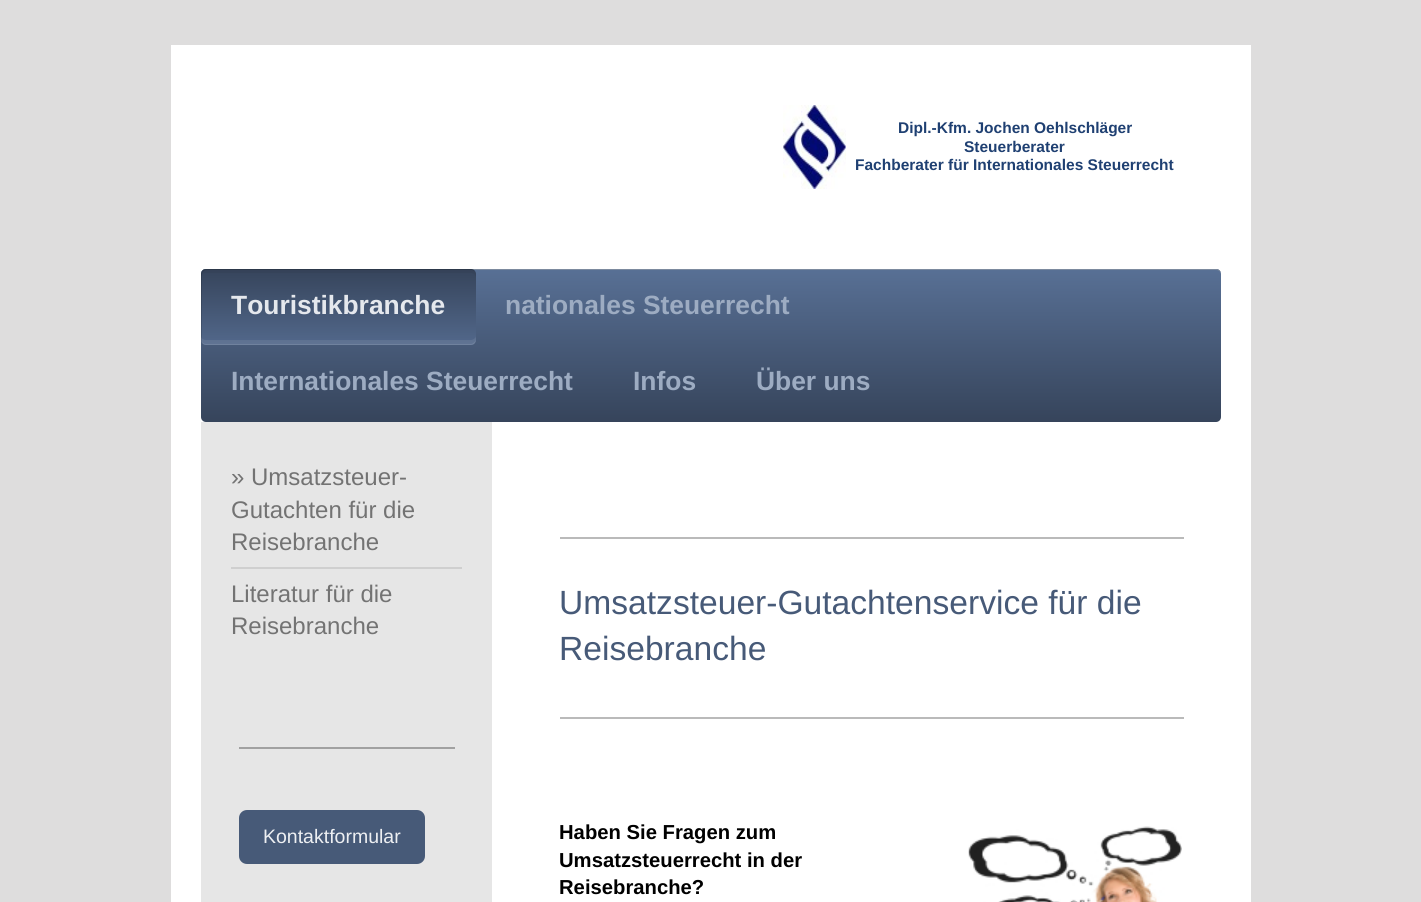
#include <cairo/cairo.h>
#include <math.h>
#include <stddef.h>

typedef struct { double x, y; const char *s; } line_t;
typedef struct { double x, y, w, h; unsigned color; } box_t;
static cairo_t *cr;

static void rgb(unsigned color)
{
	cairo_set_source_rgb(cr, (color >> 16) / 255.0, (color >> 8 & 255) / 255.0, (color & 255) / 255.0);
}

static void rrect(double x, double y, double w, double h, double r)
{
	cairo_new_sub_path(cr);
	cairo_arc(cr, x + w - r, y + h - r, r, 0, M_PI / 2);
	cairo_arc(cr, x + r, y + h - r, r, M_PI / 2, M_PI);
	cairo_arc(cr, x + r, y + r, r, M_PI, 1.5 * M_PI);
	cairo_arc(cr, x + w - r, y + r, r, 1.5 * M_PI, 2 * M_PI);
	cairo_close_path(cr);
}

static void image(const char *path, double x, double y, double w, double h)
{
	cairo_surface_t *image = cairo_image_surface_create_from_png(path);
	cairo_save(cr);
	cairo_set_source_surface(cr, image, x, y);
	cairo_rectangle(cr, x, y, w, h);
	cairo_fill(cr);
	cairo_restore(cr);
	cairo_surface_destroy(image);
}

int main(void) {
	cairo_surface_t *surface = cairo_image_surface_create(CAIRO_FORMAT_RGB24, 1421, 902);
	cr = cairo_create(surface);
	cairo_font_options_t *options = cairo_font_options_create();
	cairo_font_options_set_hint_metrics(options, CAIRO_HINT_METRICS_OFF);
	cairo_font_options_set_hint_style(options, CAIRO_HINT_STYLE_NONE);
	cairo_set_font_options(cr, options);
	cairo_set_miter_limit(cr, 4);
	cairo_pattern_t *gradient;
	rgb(0xdedddd);
	cairo_paint(cr);
	rgb(0xffffff);
	cairo_rectangle(cr, 171, 45, 1080, 857);
	cairo_fill(cr);
	image("img/1.png", 783, 105, 63, 84);
	gradient = cairo_pattern_create_linear(201, 269, 201, 422);
	cairo_pattern_add_color_stop_rgba(gradient, 0, 0.345, 0.439, 0.584, 1);
	cairo_pattern_add_color_stop_rgba(gradient, 1, 0.212, 0.267, 0.357, 1);
	cairo_set_source(cr, gradient);
	cairo_pattern_destroy(gradient);
	rrect(201, 269, 1020, 153, 5);
	cairo_fill(cr);
	rgb(0x455875);
	cairo_new_path(cr);
	cairo_move_to(cr, 206, 270);
	cairo_line_to(cr, 1216, 270);
	cairo_curve_to(cr, 1219, 270, 1221, 272, 1221, 274);
	cairo_curve_to(cr, 1221, 271, 1219, 269, 1216, 269);
	cairo_line_to(cr, 206, 269);
	cairo_curve_to(cr, 203, 269, 201, 271, 201, 274);
	cairo_curve_to(cr, 201, 272, 203, 270, 206, 270);
	cairo_close_path(cr);
	cairo_fill(cr);
	cairo_set_source_rgba(cr, 1, 1, 1, 0.3);
	cairo_new_path(cr);
	cairo_move_to(cr, 206, 270);
	cairo_line_to(cr, 1216, 270);
	cairo_curve_to(cr, 1219, 270, 1221, 272, 1221, 274);
	cairo_curve_to(cr, 1221, 271, 1219, 269, 1216, 269);
	cairo_line_to(cr, 206, 269);
	cairo_curve_to(cr, 203, 269, 201, 271, 201, 274);
	cairo_curve_to(cr, 201, 272, 203, 270, 206, 270);
	cairo_close_path(cr);
	cairo_fill(cr);
	gradient = cairo_pattern_create_linear(201, 345, 201, 269);
	cairo_pattern_add_color_stop_rgba(gradient, 0, 0.322, 0.408, 0.545, 1);
	cairo_pattern_add_color_stop_rgba(gradient, 1, 0.212, 0.267, 0.357, 1);
	cairo_set_source(cr, gradient);
	cairo_pattern_destroy(gradient);
	rrect(201, 269, 275, 76, 5);
	cairo_fill(cr);
	cairo_set_source_rgba(cr, 0, 0, 0, 0.15);
	cairo_new_path(cr);
	cairo_move_to(cr, 207, 270);
	cairo_line_to(cr, 472, 270);
	cairo_line_to(cr, 475, 271);
	cairo_curve_to(cr, 474, 270, 472, 269, 471, 269);
	cairo_line_to(cr, 206, 269);
	cairo_curve_to(cr, 203, 269, 201, 271, 201, 274);
	cairo_line_to(cr, 201, 340);
	cairo_curve_to(cr, 201, 342, 202, 343, 203, 344);
	cairo_line_to(cr, 202, 342);
	cairo_line_to(cr, 202, 273);
	cairo_curve_to(cr, 203, 271, 205, 270, 207, 270);
	cairo_close_path(cr);
	cairo_fill(cr);
	cairo_set_source_rgba(cr, 0, 0, 0, 0.04);
	cairo_new_path(cr);
	cairo_move_to(cr, 206, 273);
	cairo_line_to(cr, 471, 273);
	cairo_curve_to(cr, 473, 273, 476, 275, 476, 278);
	cairo_line_to(cr, 476, 274);
	cairo_curve_to(cr, 476, 271, 474, 269, 471, 269);
	cairo_line_to(cr, 206, 269);
	cairo_curve_to(cr, 203, 269, 201, 271, 201, 274);
	cairo_line_to(cr, 201, 278);
	cairo_curve_to(cr, 201, 275, 203, 273, 206, 273);
	cairo_close_path(cr);
	cairo_fill(cr);
	cairo_set_source_rgba(cr, 1, 1, 1, 0.08);
	cairo_new_path(cr);
	cairo_move_to(cr, 201, 336);
	cairo_line_to(cr, 201, 340);
	cairo_curve_to(cr, 201, 343, 203, 345, 206, 345);
	cairo_line_to(cr, 471, 345);
	cairo_curve_to(cr, 474, 345, 476, 343, 476, 340);
	cairo_line_to(cr, 476, 336);
	cairo_curve_to(cr, 476, 338, 473, 340, 471, 340);
	cairo_line_to(cr, 206, 340);
	cairo_curve_to(cr, 203, 340, 201, 338, 201, 336);
	cairo_close_path(cr);
	cairo_fill(cr);
	cairo_set_source_rgba(cr, 1, 1, 1, 0.1);
	cairo_new_path(cr);
	cairo_move_to(cr, 201, 339);
	cairo_curve_to(cr, 201, 342, 203, 345, 206, 345);
	cairo_line_to(cr, 471, 345);
	cairo_curve_to(cr, 474, 345, 476, 342, 476, 339);
	cairo_curve_to(cr, 476, 341, 473, 344, 471, 344);
	cairo_line_to(cr, 206, 344);
	cairo_curve_to(cr, 203, 344, 201, 341, 201, 339);
	cairo_close_path(cr);
	cairo_fill(cr);
	{
		static const box_t items[] = {
			{201, 422, 291, 480, 0xe6e6e6},
			{231, 567, 231, 2, 0xcfcfcf},
			{239, 747, 216, 2, 0xa1a1a1},
		};
		for (size_t i = 0; i < sizeof items / sizeof *items; i++) {
			rgb(items[i].color);
			cairo_rectangle(cr, items[i].x, items[i].y, items[i].w, items[i].h);
			cairo_fill(cr);
		}
	}
	rgb(0x475a78);
	rrect(240, 811, 184, 52, 7);
	cairo_fill_preserve(cr);
	cairo_stroke(cr);
	rgb(0xbababa);
	cairo_rectangle(cr, 560, 537, 624, 2);
	cairo_fill(cr);
	cairo_rectangle(cr, 560, 717, 624, 2);
	cairo_fill(cr);
	image("img/2.png", 968, 826, 214, 76);
	cairo_select_font_face(cr, "Liberation Sans", CAIRO_FONT_SLANT_NORMAL, CAIRO_FONT_WEIGHT_BOLD);
	cairo_set_font_size(cr, 15.5);
	rgb(0x1f4072);
	{
		static const line_t items[] = {
			{898, 133, "Dipl.-Kfm. Jochen Oehlschläger"},
			{964, 152, "Steuerberater"},
			{855, 170, "Fachberater für Internationales Steuerrecht"},
		};
		for (size_t i = 0; i < sizeof items / sizeof *items; i++) {
			cairo_move_to(cr, items[i].x, items[i].y);
			cairo_show_text(cr, items[i].s);
		}
	}
	cairo_set_font_size(cr, 26.4);
	rgb(0xe5e8ed);
	cairo_move_to(cr, 231, 314);
	cairo_show_text(cr, "Touristikbranche");
	rgb(0x9dacc2);
	{
		static const line_t items[] = {
			{505, 314, "nationales Steuerrecht"},
			{231, 390, "Internationales Steuerrecht"},
			{633, 390, "Infos"},
			{756, 390, "Über uns"},
		};
		for (size_t i = 0; i < sizeof items / sizeof *items; i++) {
			cairo_move_to(cr, items[i].x, items[i].y);
			cairo_show_text(cr, items[i].s);
		}
	}
	cairo_select_font_face(cr, "Liberation Sans", CAIRO_FONT_SLANT_NORMAL, CAIRO_FONT_WEIGHT_NORMAL);
	cairo_set_font_size(cr, 24);
	rgb(0x737373);
	{
		static const line_t items[] = {
			{231, 485, "» Umsatzsteuer-"},
			{231, 518, "Gutachten für die"},
			{231, 550, "Reisebranche"},
			{231, 602, "Literatur für die"},
			{231, 634, "Reisebranche"},
		};
		for (size_t i = 0; i < sizeof items / sizeof *items; i++) {
			cairo_move_to(cr, items[i].x, items[i].y);
			cairo_show_text(cr, items[i].s);
		}
	}
	cairo_set_font_size(cr, 19.5);
	rgb(0xedeff2);
	cairo_move_to(cr, 263, 843);
	cairo_show_text(cr, "Kontaktformular");
	cairo_set_font_size(cr, 33.6);
	rgb(0x475a78);
	cairo_move_to(cr, 559, 614);
	cairo_show_text(cr, "Umsatzsteuer-Gutachtenservice für die");
	cairo_move_to(cr, 559, 660);
	cairo_show_text(cr, "Reisebranche");
	cairo_select_font_face(cr, "Liberation Sans", CAIRO_FONT_SLANT_NORMAL, CAIRO_FONT_WEIGHT_BOLD);
	cairo_set_font_size(cr, 20.25);
	rgb(0x000000);
	{
		static const line_t items[] = {
			{559, 839, "Haben Sie Fragen zum"},
			{559, 867, "Umsatzsteuerrecht in der"},
			{559, 894, "Reisebranche?"},
		};
		for (size_t i = 0; i < sizeof items / sizeof *items; i++) {
			cairo_move_to(cr, items[i].x, items[i].y);
			cairo_show_text(cr, items[i].s);
		}
	}
	cairo_surface_write_to_png(surface, "page.png");
	cairo_font_options_destroy(options);
	cairo_destroy(cr);
	cairo_surface_destroy(surface);
	return 0;
}
